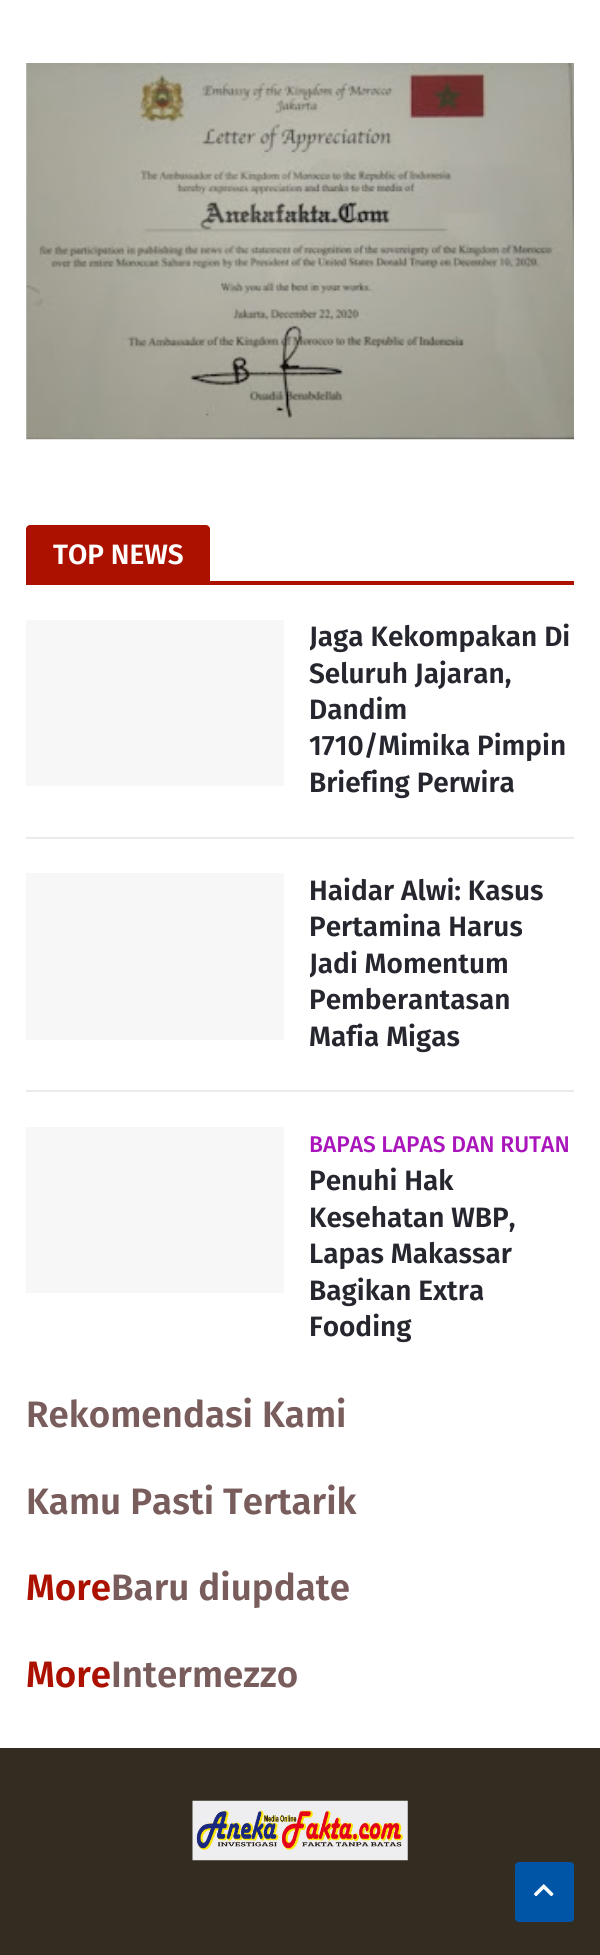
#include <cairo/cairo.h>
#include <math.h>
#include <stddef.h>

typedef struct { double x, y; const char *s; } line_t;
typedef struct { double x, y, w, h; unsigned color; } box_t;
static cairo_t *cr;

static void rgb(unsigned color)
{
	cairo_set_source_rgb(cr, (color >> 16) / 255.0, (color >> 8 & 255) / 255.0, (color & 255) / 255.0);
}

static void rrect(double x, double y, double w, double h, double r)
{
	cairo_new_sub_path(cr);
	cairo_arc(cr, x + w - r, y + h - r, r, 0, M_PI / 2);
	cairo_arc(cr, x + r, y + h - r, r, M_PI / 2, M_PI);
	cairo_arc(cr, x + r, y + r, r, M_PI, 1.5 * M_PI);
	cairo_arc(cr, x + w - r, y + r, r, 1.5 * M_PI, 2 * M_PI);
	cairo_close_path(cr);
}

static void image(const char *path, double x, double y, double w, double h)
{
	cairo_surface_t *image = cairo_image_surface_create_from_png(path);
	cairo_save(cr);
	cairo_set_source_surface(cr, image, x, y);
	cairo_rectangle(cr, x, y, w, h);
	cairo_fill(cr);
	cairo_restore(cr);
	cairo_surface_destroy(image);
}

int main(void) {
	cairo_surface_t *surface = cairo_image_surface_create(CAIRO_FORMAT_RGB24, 600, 1955);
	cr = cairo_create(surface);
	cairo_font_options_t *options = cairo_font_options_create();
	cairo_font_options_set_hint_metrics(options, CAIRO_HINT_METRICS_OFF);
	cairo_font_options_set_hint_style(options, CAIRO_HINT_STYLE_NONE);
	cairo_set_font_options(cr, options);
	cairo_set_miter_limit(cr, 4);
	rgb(0xffffff);
	cairo_paint(cr);
	image("img/1.png", 26, 63, 548, 377);
	rgb(0xac1100);
	cairo_rectangle(cr, 210, 581, 364, 4);
	cairo_fill(cr);
	cairo_new_path(cr);
	cairo_move_to(cr, 30, 525);
	cairo_line_to(cr, 206, 525);
	cairo_curve_to(cr, 208, 525, 210, 527, 210, 529);
	cairo_line_to(cr, 210, 585);
	cairo_line_to(cr, 26, 585);
	cairo_line_to(cr, 26, 529);
	cairo_curve_to(cr, 26, 527, 28, 525, 30, 525);
	cairo_close_path(cr);
	cairo_fill(cr);
	{
		static const box_t items[] = {
			{26, 620, 258, 166, 0xf7f7f7},
			{26, 837, 548, 2, 0xebebeb},
			{26, 873, 258, 167, 0xf7f7f7},
			{26, 1090, 548, 2, 0xebebeb},
			{26, 1127, 258, 166, 0xf7f7f7},
			{0, 1748, 600, 207, 0x332c20},
		};
		for (size_t i = 0; i < sizeof items / sizeof *items; i++) {
			rgb(items[i].color);
			cairo_rectangle(cr, items[i].x, items[i].y, items[i].w, items[i].h);
			cairo_fill(cr);
		}
	}
	image("img/2.png", 192, 1800, 216, 61);
	rgb(0x0055a6);
	rrect(515, 1862, 59, 60, 4);
	cairo_fill(cr);
	image("img/3.png", 534, 1884, 20, 13);
	cairo_select_font_face(cr, "Fira Sans SemiBold", CAIRO_FONT_SLANT_NORMAL, CAIRO_FONT_WEIGHT_NORMAL);
	cairo_set_font_size(cr, 28);
	rgb(0xffffff);
	cairo_move_to(cr, 53, 564);
	cairo_show_text(cr, "TOP NEWS");
	cairo_save(cr);
	cairo_rectangle(cr, 310, 620, 264, 182);
	cairo_clip(cr);
	rgb(0x25262e);
	cairo_move_to(cr, 309, 646);
	cairo_show_text(cr, "Jaga Kekompakan Di");
	cairo_restore(cr);
	rgb(0x25262e);
	{
		static const line_t items[] = {
			{309, 683, "Seluruh Jajaran,"},
			{309, 719, "Dandim"},
			{309, 755, "1710/Mimika Pimpin"},
			{309, 792, "Briefing Perwira"},
			{309, 900, "Haidar Alwi: Kasus"},
			{309, 936, "Pertamina Harus"},
		};
		for (size_t i = 0; i < sizeof items / sizeof *items; i++) {
			cairo_move_to(cr, items[i].x, items[i].y);
			cairo_show_text(cr, items[i].s);
		}
	}
	cairo_save(cr);
	cairo_rectangle(cr, 310, 873, 264, 182);
	cairo_clip(cr);
	cairo_move_to(cr, 309, 973);
	cairo_show_text(cr, "Jadi Momentum");
	cairo_restore(cr);
	cairo_move_to(cr, 309, 1009);
	cairo_show_text(cr, "Pemberantasan");
	cairo_move_to(cr, 309, 1046);
	cairo_show_text(cr, "Mafia Migas");
	cairo_select_font_face(cr, "Fira Sans Medium", CAIRO_FONT_SLANT_NORMAL, CAIRO_FONT_WEIGHT_NORMAL);
	cairo_set_font_size(cr, 22.75);
	rgb(0xa915bb);
	cairo_move_to(cr, 309, 1152);
	cairo_show_text(cr, "BAPAS LAPAS DAN RUTAN");
	cairo_select_font_face(cr, "Fira Sans SemiBold", CAIRO_FONT_SLANT_NORMAL, CAIRO_FONT_WEIGHT_NORMAL);
	cairo_set_font_size(cr, 28);
	rgb(0x25262e);
	{
		static const line_t items[] = {
			{309, 1190, "Penuhi Hak"},
			{309, 1227, "Kesehatan WBP,"},
			{309, 1263, "Lapas Makassar"},
			{309, 1300, "Bagikan Extra"},
			{309, 1336, "Fooding"},
		};
		for (size_t i = 0; i < sizeof items / sizeof *items; i++) {
			cairo_move_to(cr, items[i].x, items[i].y);
			cairo_show_text(cr, items[i].s);
		}
	}
	cairo_set_font_size(cr, 36.75);
	rgb(0x795d5d);
	cairo_move_to(cr, 26, 1427);
	cairo_show_text(cr, "Rekomendasi Kami");
	cairo_move_to(cr, 26, 1514);
	cairo_show_text(cr, "Kamu Pasti Tertarik");
	rgb(0xac1100);
	cairo_move_to(cr, 26, 1600);
	cairo_show_text(cr, "More");
	rgb(0x795d5d);
	cairo_move_to(cr, 111, 1600);
	cairo_show_text(cr, "Baru diupdate");
	rgb(0xac1100);
	cairo_move_to(cr, 26, 1687);
	cairo_show_text(cr, "More");
	rgb(0x795d5d);
	cairo_move_to(cr, 111, 1687);
	cairo_show_text(cr, "Intermezzo");
	cairo_surface_write_to_png(surface, "page.png");
	cairo_font_options_destroy(options);
	cairo_destroy(cr);
	cairo_surface_destroy(surface);
	return 0;
}
